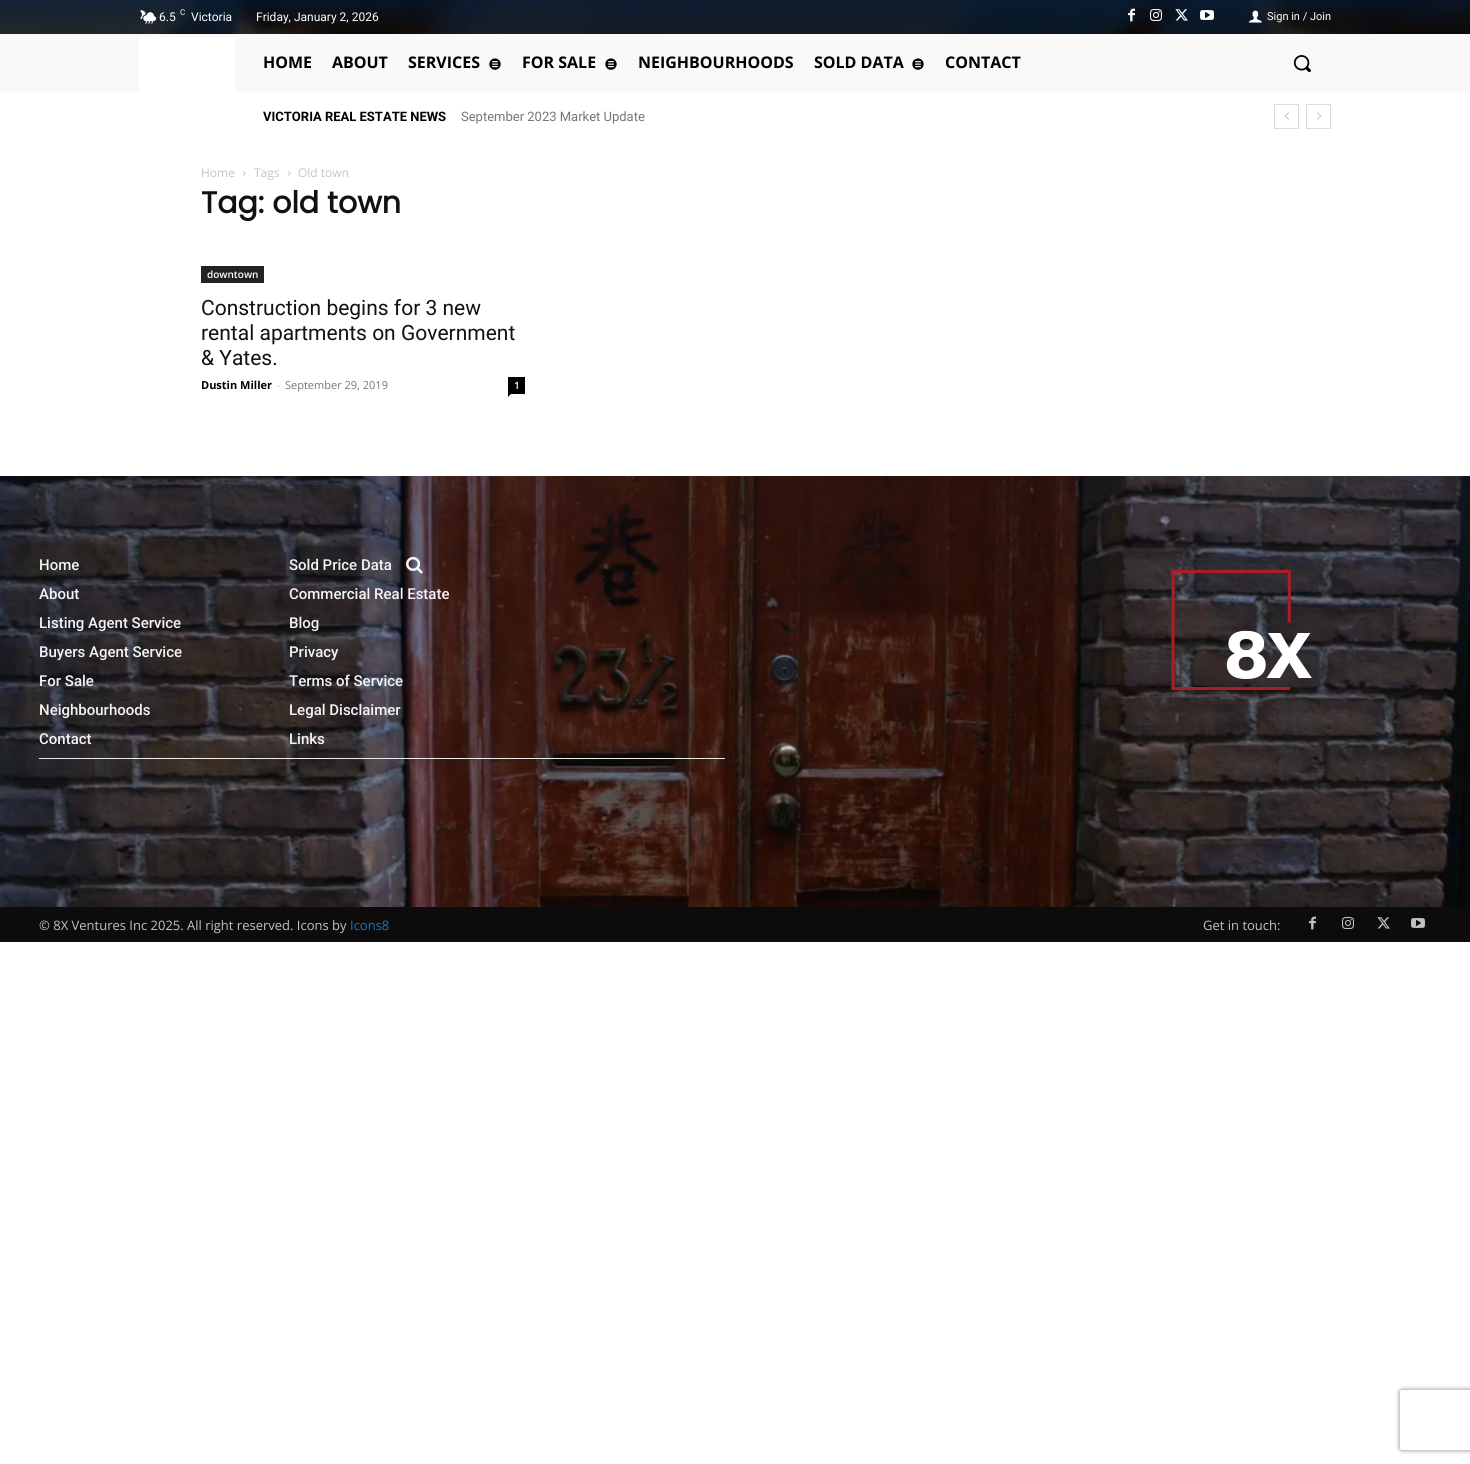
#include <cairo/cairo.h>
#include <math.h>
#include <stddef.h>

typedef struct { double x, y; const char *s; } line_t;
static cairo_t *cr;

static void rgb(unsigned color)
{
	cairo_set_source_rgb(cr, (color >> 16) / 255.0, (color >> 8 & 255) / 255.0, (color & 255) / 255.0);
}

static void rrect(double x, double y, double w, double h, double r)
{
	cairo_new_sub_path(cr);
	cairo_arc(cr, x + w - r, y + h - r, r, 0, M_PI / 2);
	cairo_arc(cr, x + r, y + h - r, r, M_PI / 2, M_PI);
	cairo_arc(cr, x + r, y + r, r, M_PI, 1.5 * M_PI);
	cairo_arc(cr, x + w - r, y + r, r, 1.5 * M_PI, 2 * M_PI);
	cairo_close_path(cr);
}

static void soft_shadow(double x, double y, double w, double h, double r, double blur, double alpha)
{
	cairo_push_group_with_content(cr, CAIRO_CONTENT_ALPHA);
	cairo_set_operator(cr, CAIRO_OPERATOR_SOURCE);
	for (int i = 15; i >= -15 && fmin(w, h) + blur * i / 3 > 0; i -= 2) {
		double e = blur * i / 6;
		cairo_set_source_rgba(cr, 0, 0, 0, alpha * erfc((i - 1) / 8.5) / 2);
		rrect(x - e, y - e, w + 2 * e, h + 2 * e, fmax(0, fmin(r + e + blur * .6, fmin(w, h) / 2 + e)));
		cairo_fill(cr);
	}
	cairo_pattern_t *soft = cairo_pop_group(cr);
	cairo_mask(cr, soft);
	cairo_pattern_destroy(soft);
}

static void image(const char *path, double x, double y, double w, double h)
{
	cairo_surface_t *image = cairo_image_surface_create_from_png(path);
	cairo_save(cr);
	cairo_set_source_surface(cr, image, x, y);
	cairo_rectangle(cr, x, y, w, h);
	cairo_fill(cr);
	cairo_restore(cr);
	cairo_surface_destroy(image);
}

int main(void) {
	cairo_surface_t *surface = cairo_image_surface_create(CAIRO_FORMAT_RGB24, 1470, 1464);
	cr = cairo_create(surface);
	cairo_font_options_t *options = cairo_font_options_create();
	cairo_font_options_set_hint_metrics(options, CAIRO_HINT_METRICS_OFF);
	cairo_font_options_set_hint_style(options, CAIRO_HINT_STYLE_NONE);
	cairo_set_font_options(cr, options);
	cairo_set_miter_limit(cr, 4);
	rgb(0xffffff);
	cairo_paint(cr);
	image("img/1.png", 0, 0, 1470, 34);
	image("img/2.png", 140, 10, 17, 14);
	image("img/3.png", 1128, 8, 7, 14);
	image("img/4.png", 1150, 9, 12, 12);
	image("img/5.png", 1175, 9, 13, 12);
	image("img/6.png", 1200, 10, 14, 10);
	image("img/7.png", 1249, 10, 13, 13);
	rgb(0xf9f9f9);
	cairo_rectangle(cr, 0, 34, 1470, 58);
	cairo_fill(cr);
	rgb(0xffffff);
	cairo_rectangle(cr, 139, 37, 96, 55);
	cairo_fill(cr);
	image("img/8.png", 489, 58, 12, 12);
	image("img/8.png", 605, 58, 12, 12);
	image("img/8.png", 912, 58, 12, 12);
	image("img/9.png", 1293, 55, 18, 18);
	cairo_rectangle(cr, 1274.5, 104.5, 24, 24);
	rgb(0xdcdcdc);
	cairo_set_line_width(cr, 1);
	cairo_stroke(cr);
	image("img/10.png", 1284, 112, 5, 8);
	cairo_rectangle(cr, 1306.5, 104.5, 24, 24);
	cairo_stroke(cr);
	image("img/11.png", 1317, 112, 5, 8);
	image("img/12.png", 243, 171, 3, 5);
	image("img/12.png", 288, 171, 3, 5);
	rgb(0x222222);
	cairo_rectangle(cr, 201, 266, 63, 17);
	cairo_fill(cr);
	rgb(0x000000);
	cairo_rectangle(cr, 508, 377, 17, 17);
	cairo_fill(cr);
	cairo_new_path(cr);
	cairo_move_to(cr, 508, 394);
	cairo_line_to(cr, 511, 394);
	cairo_line_to(cr, 508, 397);
	cairo_close_path(cr);
	cairo_fill(cr);
	image("img/13.png", 0, 476, 1470, 431);
	image("img/14.png", 406, 556, 17, 18);
	rgb(0xebebeb);
	cairo_rectangle(cr, 39, 758, 686, 1);
	cairo_fill(cr);
	image("img/15.png", 1171, 570, 141, 120);
	rgb(0x0c0c0c);
	cairo_rectangle(cr, 0, 907, 1470, 35);
	cairo_fill(cr);
	image("img/16.png", 1309, 916, 7, 14);
	image("img/17.png", 1342, 917, 12, 12);
	image("img/18.png", 1377, 917, 13, 12);
	image("img/19.png", 1411, 918, 14, 10);
	cairo_save(cr);
	cairo_set_fill_rule(cr, CAIRO_FILL_RULE_EVEN_ODD);
	cairo_new_path(cr);
	cairo_move_to(cr, 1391, 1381);
	cairo_line_to(cr, 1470, 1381);
	cairo_line_to(cr, 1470, 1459);
	cairo_line_to(cr, 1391, 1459);
	cairo_close_path(cr);
	cairo_move_to(cr, 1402, 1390);
	cairo_line_to(cr, 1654, 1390);
	cairo_curve_to(cr, 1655, 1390, 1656, 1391, 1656, 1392);
	cairo_line_to(cr, 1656, 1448);
	cairo_curve_to(cr, 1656, 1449, 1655, 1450, 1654, 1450);
	cairo_line_to(cr, 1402, 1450);
	cairo_curve_to(cr, 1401, 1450, 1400, 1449, 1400, 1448);
	cairo_line_to(cr, 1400, 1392);
	cairo_curve_to(cr, 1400, 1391, 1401, 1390, 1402, 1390);
	cairo_close_path(cr);
	cairo_clip(cr);
	rgb(0x808080);
	soft_shadow(1400, 1390, 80, 60, 2, 2.5, 1);
	cairo_restore(cr);
	cairo_select_font_face(cr, "Roboto", CAIRO_FONT_SLANT_NORMAL, CAIRO_FONT_WEIGHT_NORMAL);
	cairo_set_font_size(cr, 12);
	rgb(0xffffff);
	cairo_move_to(cr, 159, 21);
	cairo_show_text(cr, "6.5");
	cairo_set_font_size(cr, 8);
	cairo_move_to(cr, 180, 15);
	cairo_show_text(cr, "C");
	cairo_set_font_size(cr, 12);
	cairo_move_to(cr, 191, 21);
	cairo_show_text(cr, "Victoria");
	cairo_move_to(cr, 256, 21);
	cairo_show_text(cr, "Friday, January 2, 2026");
	cairo_set_font_size(cr, 11);
	cairo_move_to(cr, 1267, 20);
	cairo_show_text(cr, "Sign in / Join");
	cairo_select_font_face(cr, "Open Sans", CAIRO_FONT_SLANT_NORMAL, CAIRO_FONT_WEIGHT_BOLD);
	cairo_set_font_size(cr, 16);
	rgb(0x000000);
	{
		static const line_t items[] = {
			{263, 68, "HOME"},
			{332, 68, "ABOUT"},
			{408, 68, "SERVICES"},
			{522, 68, "FOR SALE"},
			{638, 68, "NEIGHBOURHOODS"},
			{814, 68, "SOLD DATA"},
			{945, 68, "CONTACT"},
		};
		for (size_t i = 0; i < sizeof items / sizeof *items; i++) {
			cairo_move_to(cr, items[i].x, items[i].y);
			cairo_show_text(cr, items[i].s);
		}
	}
	cairo_select_font_face(cr, "Roboto", CAIRO_FONT_SLANT_NORMAL, CAIRO_FONT_WEIGHT_BOLD);
	cairo_set_font_size(cr, 13);
	cairo_move_to(cr, 263, 121);
	cairo_show_text(cr, "VICTORIA REAL ESTATE NEWS");
	cairo_select_font_face(cr, "Roboto", CAIRO_FONT_SLANT_NORMAL, CAIRO_FONT_WEIGHT_NORMAL);
	rgb(0x767676);
	cairo_move_to(cr, 461, 121);
	cairo_show_text(cr, "September 2023 Market Update");
	cairo_select_font_face(cr, "Open Sans", CAIRO_FONT_SLANT_NORMAL, CAIRO_FONT_WEIGHT_NORMAL);
	cairo_set_font_size(cr, 12);
	rgb(0xc3c3c3);
	{
		static const line_t items[] = {
			{201, 177, "Home"},
			{254, 177, "Tags"},
			{298, 177, "Old town"},
		};
		for (size_t i = 0; i < sizeof items / sizeof *items; i++) {
			cairo_move_to(cr, items[i].x, items[i].y);
			cairo_show_text(cr, items[i].s);
		}
	}
	cairo_select_font_face(cr, "Poppins", CAIRO_FONT_SLANT_NORMAL, CAIRO_FONT_WEIGHT_BOLD);
	cairo_set_font_size(cr, 30);
	rgb(0x111111);
	cairo_move_to(cr, 201, 213);
	cairo_show_text(cr, "Tag: old town");
	cairo_select_font_face(cr, "Open Sans SemiBold", CAIRO_FONT_SLANT_NORMAL, CAIRO_FONT_WEIGHT_NORMAL);
	cairo_set_font_size(cr, 10);
	rgb(0xffffff);
	cairo_move_to(cr, 207, 278);
	cairo_show_text(cr, "downtown");
	cairo_select_font_face(cr, "Roboto", CAIRO_FONT_SLANT_NORMAL, CAIRO_FONT_WEIGHT_NORMAL);
	cairo_set_font_size(cr, 21);
	rgb(0x111111);
	{
		static const line_t items[] = {
			{201, 315, "Construction begins for 3 new"},
			{201, 340, "rental apartments on Government"},
			{201, 365, "& Yates."},
		};
		for (size_t i = 0; i < sizeof items / sizeof *items; i++) {
			cairo_move_to(cr, items[i].x, items[i].y);
			cairo_show_text(cr, items[i].s);
		}
	}
	cairo_select_font_face(cr, "Open Sans", CAIRO_FONT_SLANT_NORMAL, CAIRO_FONT_WEIGHT_BOLD);
	cairo_set_font_size(cr, 11);
	rgb(0x000000);
	cairo_move_to(cr, 201, 389);
	cairo_show_text(cr, "Dustin Miller");
	cairo_select_font_face(cr, "Open Sans", CAIRO_FONT_SLANT_NORMAL, CAIRO_FONT_WEIGHT_NORMAL);
	rgb(0xcccccc);
	cairo_move_to(cr, 277, 389);
	cairo_show_text(cr, "-");
	rgb(0x767676);
	cairo_move_to(cr, 285, 389);
	cairo_show_text(cr, "September 29, 2019");
	cairo_select_font_face(cr, "Open Sans SemiBold", CAIRO_FONT_SLANT_NORMAL, CAIRO_FONT_WEIGHT_NORMAL);
	cairo_set_font_size(cr, 10);
	rgb(0xffffff);
	cairo_move_to(cr, 514, 389);
	cairo_show_text(cr, "1");
	cairo_select_font_face(cr, "Roboto Medium", CAIRO_FONT_SLANT_NORMAL, CAIRO_FONT_WEIGHT_NORMAL);
	cairo_set_font_size(cr, 15);
	rgb(0xf4f4f4);
	{
		static const line_t items[] = {
			{39, 570, "Home"},
			{39, 599, "About"},
			{39, 628, "Listing Agent Service"},
			{39, 657, "Buyers Agent Service"},
			{39, 686, "For Sale"},
			{39, 715, "Neighbourhoods"},
			{39, 744, "Contact"},
			{289, 570, "Sold Price Data"},
			{289, 599, "Commercial Real Estate"},
			{289, 628, "Blog"},
			{289, 657, "Privacy"},
			{289, 686, "Terms of Service"},
			{289, 715, "Legal Disclaimer"},
			{289, 744, "Links"},
		};
		for (size_t i = 0; i < sizeof items / sizeof *items; i++) {
			cairo_move_to(cr, items[i].x, items[i].y);
			cairo_show_text(cr, items[i].s);
		}
	}
	cairo_select_font_face(cr, "Open Sans", CAIRO_FONT_SLANT_NORMAL, CAIRO_FONT_WEIGHT_NORMAL);
	cairo_set_font_size(cr, 13);
	rgb(0xc3c3c3);
	cairo_move_to(cr, 39, 930);
	cairo_show_text(cr, "© 8X Ventures Inc 2025. All right reserved. Icons by");
	rgb(0x1f73c6);
	cairo_move_to(cr, 350, 930);
	cairo_show_text(cr, "Icons8");
	rgb(0xc3c3c3);
	cairo_move_to(cr, 1203, 930);
	cairo_show_text(cr, "Get in touch:");
	cairo_surface_write_to_png(surface, "page.png");
	cairo_font_options_destroy(options);
	cairo_destroy(cr);
	cairo_surface_destroy(surface);
	return 0;
}
